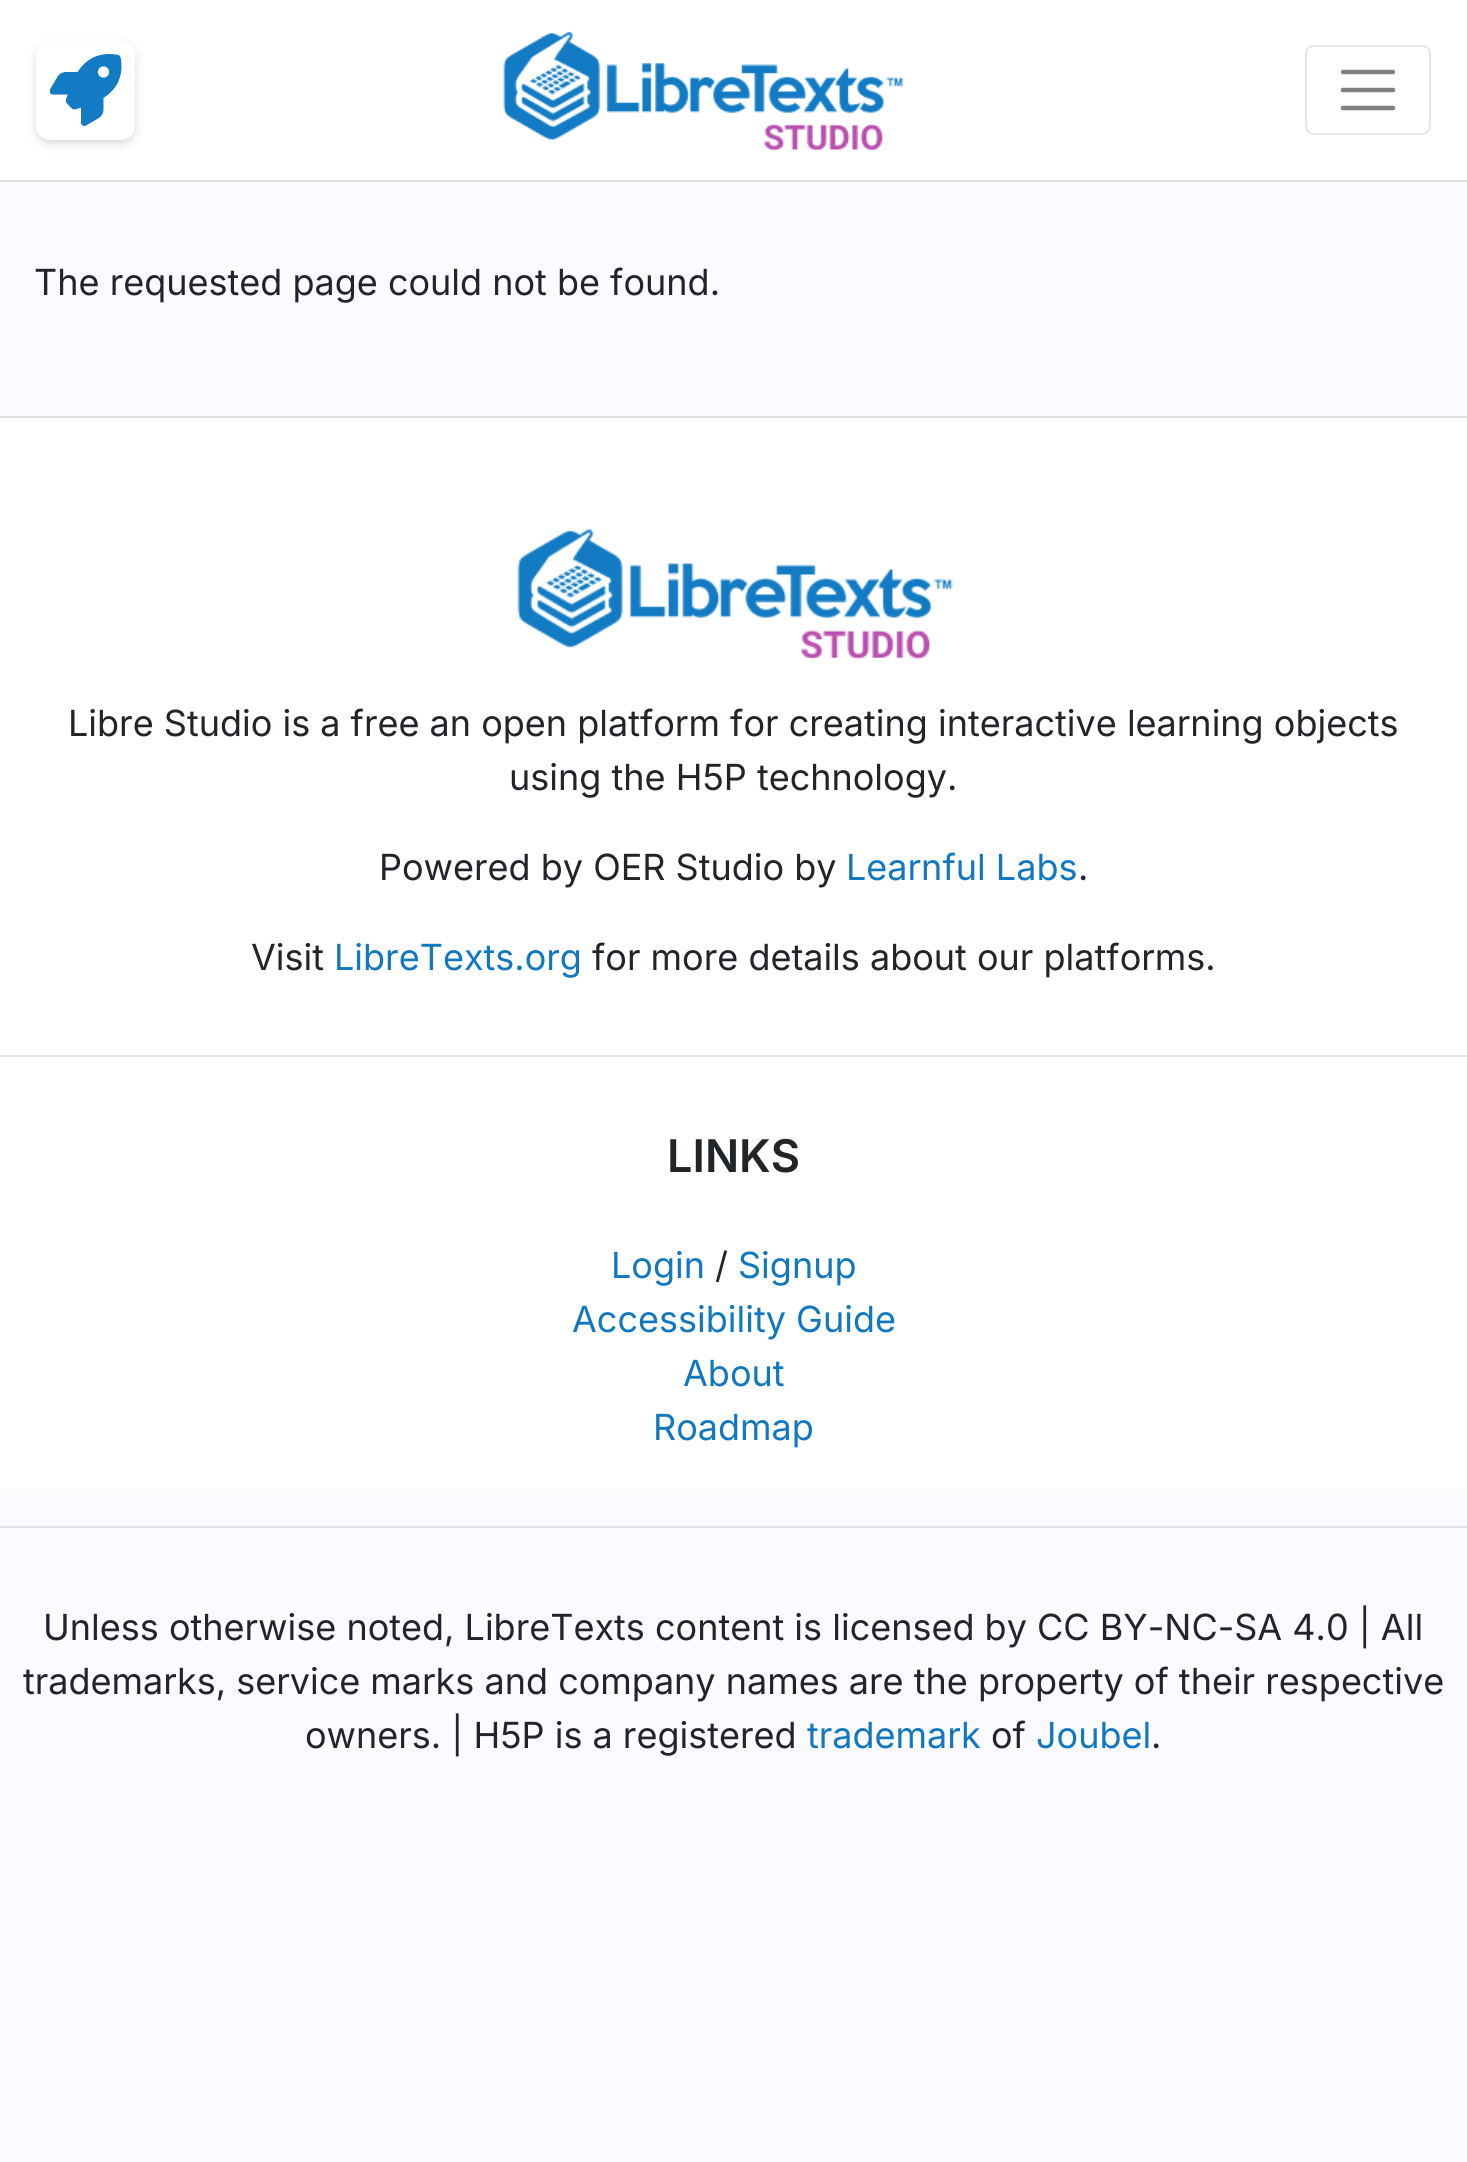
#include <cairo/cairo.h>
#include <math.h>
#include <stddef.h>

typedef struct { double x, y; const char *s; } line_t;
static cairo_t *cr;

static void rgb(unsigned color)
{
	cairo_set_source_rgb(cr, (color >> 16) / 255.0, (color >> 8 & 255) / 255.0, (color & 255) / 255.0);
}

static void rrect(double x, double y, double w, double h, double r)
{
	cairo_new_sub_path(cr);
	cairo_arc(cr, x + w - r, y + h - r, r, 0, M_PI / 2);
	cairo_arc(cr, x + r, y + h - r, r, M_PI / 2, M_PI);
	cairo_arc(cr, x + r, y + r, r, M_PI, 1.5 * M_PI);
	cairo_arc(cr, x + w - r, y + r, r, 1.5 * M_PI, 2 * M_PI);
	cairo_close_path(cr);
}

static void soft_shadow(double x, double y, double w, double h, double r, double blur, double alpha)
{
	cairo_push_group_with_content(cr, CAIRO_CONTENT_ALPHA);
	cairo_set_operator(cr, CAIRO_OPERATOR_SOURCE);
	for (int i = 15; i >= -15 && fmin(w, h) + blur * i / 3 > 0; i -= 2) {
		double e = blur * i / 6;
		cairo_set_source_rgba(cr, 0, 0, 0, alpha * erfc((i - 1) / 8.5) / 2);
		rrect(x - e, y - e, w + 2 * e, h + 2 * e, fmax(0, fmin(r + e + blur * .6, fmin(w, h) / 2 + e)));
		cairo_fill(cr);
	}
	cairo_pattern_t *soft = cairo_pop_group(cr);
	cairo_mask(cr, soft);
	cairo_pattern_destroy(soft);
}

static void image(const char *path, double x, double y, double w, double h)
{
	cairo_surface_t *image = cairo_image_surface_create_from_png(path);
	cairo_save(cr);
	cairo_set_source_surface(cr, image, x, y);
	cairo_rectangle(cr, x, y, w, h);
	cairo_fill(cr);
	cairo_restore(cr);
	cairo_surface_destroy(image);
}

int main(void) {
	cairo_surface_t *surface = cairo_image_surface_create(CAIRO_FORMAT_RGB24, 1467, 2162);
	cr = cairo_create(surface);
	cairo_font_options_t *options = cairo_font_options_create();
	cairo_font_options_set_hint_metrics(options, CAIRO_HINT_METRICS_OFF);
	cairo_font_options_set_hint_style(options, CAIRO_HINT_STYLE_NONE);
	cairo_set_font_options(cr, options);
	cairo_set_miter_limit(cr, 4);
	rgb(0xfbfbff);
	cairo_paint(cr);
	rgb(0xffffff);
	cairo_rectangle(cr, 0, 0, 1467, 180);
	cairo_fill(cr);
	rgb(0xdee2e6);
	cairo_rectangle(cr, 0, 180, 1467, 2);
	cairo_fill(cr);
	rgb(0x000000);
	soft_shadow(38, 47, 95, 95, 11, 5.5, 0.2);
	rgb(0xffffff);
	rrect(36, 41, 99, 99, 14);
	cairo_fill(cr);
	image("img/1.png", 50, 54, 72, 72);
	image("img/2.png", 503, 31, 401, 120);
	rrect(1306, 46, 124, 88, 8);
	rgb(0xe6e6e6);
	cairo_stroke(cr);
	cairo_new_path(cr);
	cairo_move_to(cr, 1343, 72);
	cairo_line_to(cr, 1393, 72);
	cairo_move_to(cr, 1343, 90);
	cairo_line_to(cr, 1393, 90);
	cairo_move_to(cr, 1343, 108);
	cairo_line_to(cr, 1393, 108);
	rgb(0x808080);
	cairo_set_line_width(cr, 4.5);
	cairo_set_line_cap(cr, CAIRO_LINE_CAP_ROUND);
	cairo_stroke(cr);
	rgb(0xffffff);
	cairo_rectangle(cr, 0, 418, 1467, 1072);
	cairo_fill(cr);
	rgb(0xdee2e6);
	cairo_rectangle(cr, 0, 416, 1467, 2);
	cairo_fill(cr);
	image("img/3.png", 517, 529, 436, 131);
	rgb(0xe6e6e6);
	cairo_rectangle(cr, 0, 1055, 1467, 2);
	cairo_fill(cr);
	rgb(0xe2e2e6);
	cairo_rectangle(cr, 0, 1526, 1467, 2);
	cairo_fill(cr);
	cairo_select_font_face(cr, "Inter", CAIRO_FONT_SLANT_NORMAL, CAIRO_FONT_WEIGHT_NORMAL);
	cairo_set_font_size(cr, 36);
	rgb(0x212529);
	{
		static const line_t items[] = {
			{34, 295, "The requested page could not be found."},
			{68, 736, "Libre Studio is a free an open platform for creating interactive learning objects"},
			{509, 790, "using the H5P technology."},
			{379, 880, "Powered by OER Studio by"},
		};
		for (size_t i = 0; i < sizeof items / sizeof *items; i++) {
			cairo_move_to(cr, items[i].x, items[i].y);
			cairo_show_text(cr, items[i].s);
		}
	}
	rgb(0x1178c0);
	cairo_move_to(cr, 846, 880);
	cairo_show_text(cr, "Learnful Labs");
	rgb(0x212529);
	cairo_move_to(cr, 1078, 880);
	cairo_show_text(cr, ".");
	cairo_move_to(cr, 251, 970);
	cairo_show_text(cr, "Visit");
	rgb(0x1178c0);
	cairo_move_to(cr, 334, 970);
	cairo_show_text(cr, "LibreTexts.org");
	rgb(0x212529);
	cairo_move_to(cr, 592, 970);
	cairo_show_text(cr, "for more details about our platforms.");
	cairo_select_font_face(cr, "Inter SemiBold", CAIRO_FONT_SLANT_NORMAL, CAIRO_FONT_WEIGHT_NORMAL);
	cairo_set_font_size(cr, 45);
	cairo_move_to(cr, 667, 1172);
	cairo_show_text(cr, "LINKS");
	cairo_select_font_face(cr, "Inter", CAIRO_FONT_SLANT_NORMAL, CAIRO_FONT_WEIGHT_NORMAL);
	cairo_set_font_size(cr, 36);
	rgb(0x1178c0);
	cairo_move_to(cr, 611, 1278);
	cairo_show_text(cr, "Login");
	rgb(0x212529);
	cairo_move_to(cr, 715, 1278);
	cairo_show_text(cr, "/");
	rgb(0x1178c0);
	{
		static const line_t items[] = {
			{738, 1278, "Signup"},
			{572, 1332, "Accessibility Guide"},
			{683, 1386, "About"},
			{653, 1440, "Roadmap"},
		};
		for (size_t i = 0; i < sizeof items / sizeof *items; i++) {
			cairo_move_to(cr, items[i].x, items[i].y);
			cairo_show_text(cr, items[i].s);
		}
	}
	rgb(0x212529);
	{
		static const line_t items[] = {
			{43, 1640, "Unless otherwise noted, LibreTexts content is licensed by CC BY-NC-SA 4.0 | All"},
			{23, 1694, "trademarks, service marks and company names are the property of their respective"},
			{305, 1748, "owners. | H5P is a registered"},
		};
		for (size_t i = 0; i < sizeof items / sizeof *items; i++) {
			cairo_move_to(cr, items[i].x, items[i].y);
			cairo_show_text(cr, items[i].s);
		}
	}
	rgb(0x1178c0);
	cairo_move_to(cr, 807, 1748);
	cairo_show_text(cr, "trademark");
	rgb(0x212529);
	cairo_move_to(cr, 991, 1748);
	cairo_show_text(cr, "of");
	rgb(0x1178c0);
	cairo_move_to(cr, 1036, 1748);
	cairo_show_text(cr, "Joubel");
	rgb(0x212529);
	cairo_move_to(cr, 1151, 1748);
	cairo_show_text(cr, ".");
	cairo_surface_write_to_png(surface, "page.png");
	cairo_font_options_destroy(options);
	cairo_destroy(cr);
	cairo_surface_destroy(surface);
	return 0;
}
